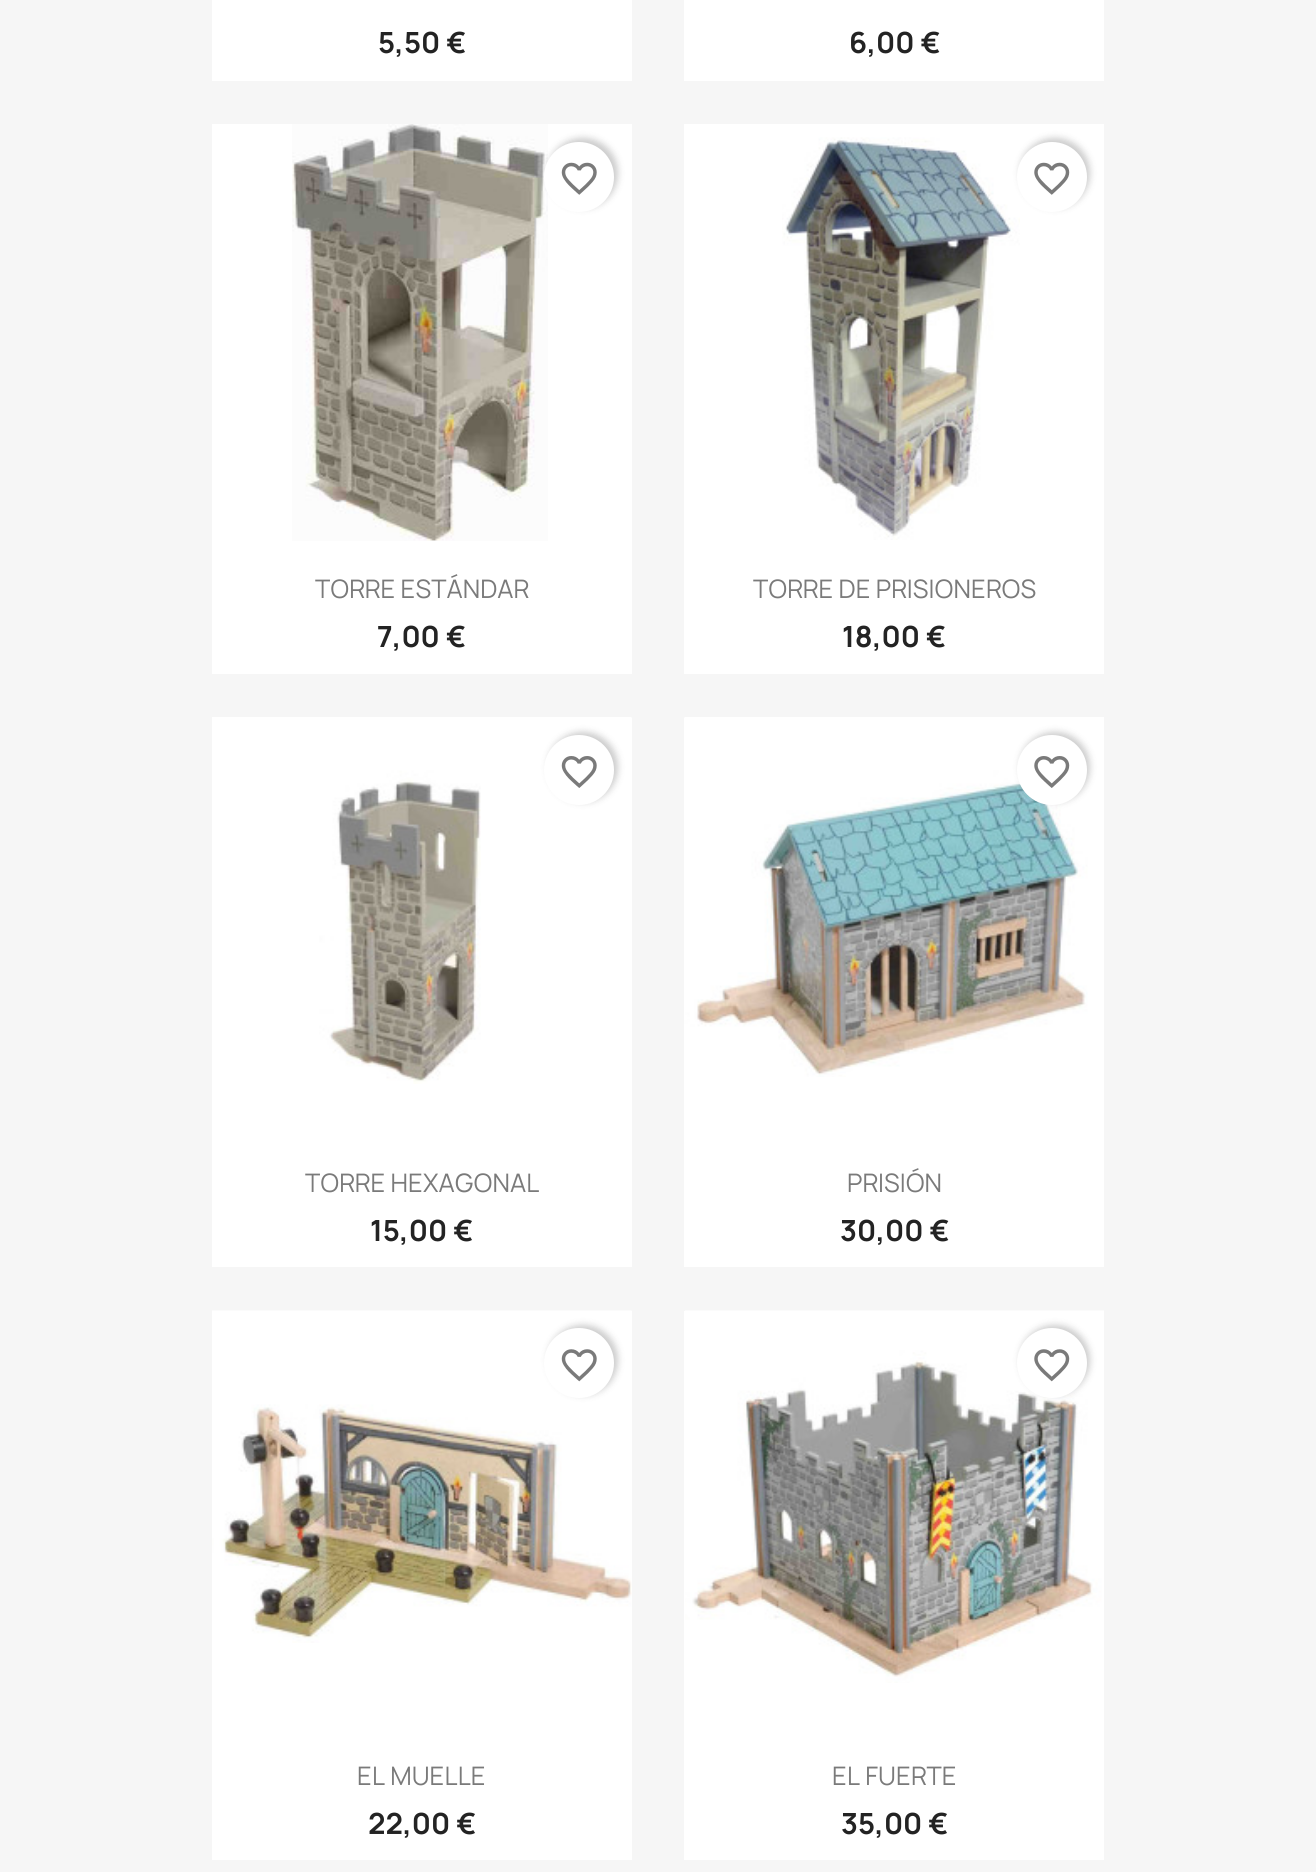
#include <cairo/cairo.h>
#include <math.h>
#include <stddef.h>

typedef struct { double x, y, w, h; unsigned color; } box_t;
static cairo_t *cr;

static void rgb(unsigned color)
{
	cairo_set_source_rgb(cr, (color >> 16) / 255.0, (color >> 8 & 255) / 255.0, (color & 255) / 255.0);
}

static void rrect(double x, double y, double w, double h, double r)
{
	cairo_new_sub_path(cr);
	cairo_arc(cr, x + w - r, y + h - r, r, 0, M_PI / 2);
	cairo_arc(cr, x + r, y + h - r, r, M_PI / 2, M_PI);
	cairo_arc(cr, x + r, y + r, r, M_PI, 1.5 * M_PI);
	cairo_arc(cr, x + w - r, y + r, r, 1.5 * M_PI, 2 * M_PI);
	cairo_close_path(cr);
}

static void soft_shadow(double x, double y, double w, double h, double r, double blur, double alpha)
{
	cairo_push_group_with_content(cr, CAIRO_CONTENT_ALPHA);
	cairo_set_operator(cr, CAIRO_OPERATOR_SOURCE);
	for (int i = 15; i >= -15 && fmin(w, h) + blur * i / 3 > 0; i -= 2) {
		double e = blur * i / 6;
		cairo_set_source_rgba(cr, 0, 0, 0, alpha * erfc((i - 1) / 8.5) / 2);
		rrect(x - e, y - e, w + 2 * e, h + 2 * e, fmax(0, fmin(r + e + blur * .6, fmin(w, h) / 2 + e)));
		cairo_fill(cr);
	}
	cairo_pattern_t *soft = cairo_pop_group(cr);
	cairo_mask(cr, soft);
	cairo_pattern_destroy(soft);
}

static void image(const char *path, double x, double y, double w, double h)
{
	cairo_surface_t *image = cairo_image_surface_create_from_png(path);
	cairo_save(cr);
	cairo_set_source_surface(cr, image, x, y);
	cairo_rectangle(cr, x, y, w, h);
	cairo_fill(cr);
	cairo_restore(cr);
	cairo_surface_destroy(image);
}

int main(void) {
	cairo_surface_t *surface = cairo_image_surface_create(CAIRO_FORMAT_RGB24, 1316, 1872);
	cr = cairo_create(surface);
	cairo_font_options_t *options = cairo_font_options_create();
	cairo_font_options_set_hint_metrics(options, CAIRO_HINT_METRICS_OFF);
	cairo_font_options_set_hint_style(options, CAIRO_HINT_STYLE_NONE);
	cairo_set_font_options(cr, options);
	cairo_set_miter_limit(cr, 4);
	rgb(0xf6f6f6);
	cairo_paint(cr);
	{
		static const box_t items[] = {
			{212, 0, 420, 81, 0xffffff},
			{684, 0, 420, 81, 0xffffff},
			{212, 124, 420, 550, 0xffffff},
		};
		for (size_t i = 0; i < sizeof items / sizeof *items; i++) {
			rgb(items[i].color);
			cairo_rectangle(cr, items[i].x, items[i].y, items[i].w, items[i].h);
			cairo_fill(cr);
		}
	}
	image("img/1.png", 292, 124, 256, 417);
	rgb(0x000000);
	soft_shadow(548, 138, 70, 70, 35, 3.5, 0.2);
	rgb(0xffffff);
	cairo_arc(cr, 579, 177, 35, 0, 2 * M_PI);
	cairo_fill(cr);
	image("img/2.png", 561, 162, 36, 33);
	cairo_rectangle(cr, 684, 124, 420, 550);
	cairo_fill(cr);
	image("img/3.png", 782, 137, 238, 403);
	rgb(0x000000);
	soft_shadow(1020, 138, 70, 70, 35, 3.5, 0.2);
	rgb(0xffffff);
	cairo_arc(cr, 1052, 177, 35, 0, 2 * M_PI);
	cairo_fill(cr);
	image("img/4.png", 1034, 162, 36, 33);
	cairo_rectangle(cr, 212, 718, 420, 549);
	cairo_fill(cr);
	image("img/5.png", 212, 717, 420, 367);
	rgb(0x000000);
	soft_shadow(548, 732, 70, 70, 35, 3.5, 0.2);
	rgb(0xffffff);
	cairo_arc(cr, 579, 770, 35, 0, 2 * M_PI);
	cairo_fill(cr);
	image("img/6.png", 561, 756, 36, 32);
	cairo_rectangle(cr, 684, 718, 420, 549);
	cairo_fill(cr);
	image("img/7.png", 684, 717, 420, 360);
	rgb(0x000000);
	soft_shadow(1020, 732, 70, 70, 35, 3.5, 0.2);
	rgb(0xffffff);
	cairo_arc(cr, 1052, 770, 35, 0, 2 * M_PI);
	cairo_fill(cr);
	image("img/8.png", 1034, 756, 36, 32);
	cairo_rectangle(cr, 212, 1311, 420, 549);
	cairo_fill(cr);
	image("img/9.png", 212, 1310, 420, 333);
	rgb(0x000000);
	soft_shadow(548, 1325, 70, 70, 35, 3.5, 0.2);
	rgb(0xffffff);
	cairo_arc(cr, 579, 1363, 35, 0, 2 * M_PI);
	cairo_fill(cr);
	image("img/10.png", 561, 1349, 36, 33);
	cairo_rectangle(cr, 684, 1311, 420, 549);
	cairo_fill(cr);
	image("img/11.png", 685, 1310, 419, 373);
	rgb(0x000000);
	soft_shadow(1020, 1325, 70, 70, 35, 3.5, 0.2);
	rgb(0xffffff);
	cairo_arc(cr, 1052, 1363, 35, 0, 2 * M_PI);
	cairo_fill(cr);
	image("img/12.png", 1034, 1349, 36, 33);
	cairo_select_font_face(cr, "Manrope", CAIRO_FONT_SLANT_NORMAL, CAIRO_FONT_WEIGHT_BOLD);
	cairo_set_font_size(cr, 28);
	rgb(0x232323);
	cairo_move_to(cr, 378, 53);
	cairo_show_text(cr, "5,50 €");
	cairo_move_to(cr, 849, 53);
	cairo_show_text(cr, "6,00 €");
	cairo_select_font_face(cr, "Manrope", CAIRO_FONT_SLANT_NORMAL, CAIRO_FONT_WEIGHT_NORMAL);
	cairo_set_font_size(cr, 24.5);
	rgb(0x7a7a7a);
	cairo_move_to(cr, 315, 598);
	cairo_show_text(cr, "TORRE ESTÁNDAR");
	cairo_select_font_face(cr, "Manrope", CAIRO_FONT_SLANT_NORMAL, CAIRO_FONT_WEIGHT_BOLD);
	cairo_set_font_size(cr, 28);
	rgb(0x232323);
	cairo_move_to(cr, 377, 647);
	cairo_show_text(cr, "7,00 €");
	cairo_select_font_face(cr, "Manrope", CAIRO_FONT_SLANT_NORMAL, CAIRO_FONT_WEIGHT_NORMAL);
	cairo_set_font_size(cr, 24.5);
	rgb(0x7a7a7a);
	cairo_move_to(cr, 753, 598);
	cairo_show_text(cr, "TORRE DE PRISIONEROS");
	cairo_select_font_face(cr, "Manrope", CAIRO_FONT_SLANT_NORMAL, CAIRO_FONT_WEIGHT_BOLD);
	cairo_set_font_size(cr, 28);
	rgb(0x232323);
	cairo_move_to(cr, 842, 647);
	cairo_show_text(cr, "18,00 €");
	cairo_select_font_face(cr, "Manrope", CAIRO_FONT_SLANT_NORMAL, CAIRO_FONT_WEIGHT_NORMAL);
	cairo_set_font_size(cr, 24.5);
	rgb(0x7a7a7a);
	cairo_move_to(cr, 305, 1192);
	cairo_show_text(cr, "TORRE HEXAGONAL");
	cairo_select_font_face(cr, "Manrope", CAIRO_FONT_SLANT_NORMAL, CAIRO_FONT_WEIGHT_BOLD);
	cairo_set_font_size(cr, 28);
	rgb(0x232323);
	cairo_move_to(cr, 370, 1241);
	cairo_show_text(cr, "15,00 €");
	cairo_select_font_face(cr, "Manrope", CAIRO_FONT_SLANT_NORMAL, CAIRO_FONT_WEIGHT_NORMAL);
	cairo_set_font_size(cr, 24.5);
	rgb(0x7a7a7a);
	cairo_move_to(cr, 847, 1192);
	cairo_show_text(cr, "PRISIÓN");
	cairo_select_font_face(cr, "Manrope", CAIRO_FONT_SLANT_NORMAL, CAIRO_FONT_WEIGHT_BOLD);
	cairo_set_font_size(cr, 28);
	rgb(0x232323);
	cairo_move_to(cr, 840, 1241);
	cairo_show_text(cr, "30,00 €");
	cairo_select_font_face(cr, "Manrope", CAIRO_FONT_SLANT_NORMAL, CAIRO_FONT_WEIGHT_NORMAL);
	cairo_set_font_size(cr, 24.5);
	rgb(0x7a7a7a);
	cairo_move_to(cr, 357, 1785);
	cairo_show_text(cr, "EL MUELLE");
	cairo_select_font_face(cr, "Manrope", CAIRO_FONT_SLANT_NORMAL, CAIRO_FONT_WEIGHT_BOLD);
	cairo_set_font_size(cr, 28);
	rgb(0x232323);
	cairo_move_to(cr, 368, 1834);
	cairo_show_text(cr, "22,00 €");
	cairo_select_font_face(cr, "Manrope", CAIRO_FONT_SLANT_NORMAL, CAIRO_FONT_WEIGHT_NORMAL);
	cairo_set_font_size(cr, 24.5);
	rgb(0x7a7a7a);
	cairo_move_to(cr, 832, 1785);
	cairo_show_text(cr, "EL FUERTE");
	cairo_select_font_face(cr, "Manrope", CAIRO_FONT_SLANT_NORMAL, CAIRO_FONT_WEIGHT_BOLD);
	cairo_set_font_size(cr, 28);
	rgb(0x232323);
	cairo_move_to(cr, 841, 1834);
	cairo_show_text(cr, "35,00 €");
	cairo_surface_write_to_png(surface, "page.png");
	cairo_font_options_destroy(options);
	cairo_destroy(cr);
	cairo_surface_destroy(surface);
	return 0;
}
